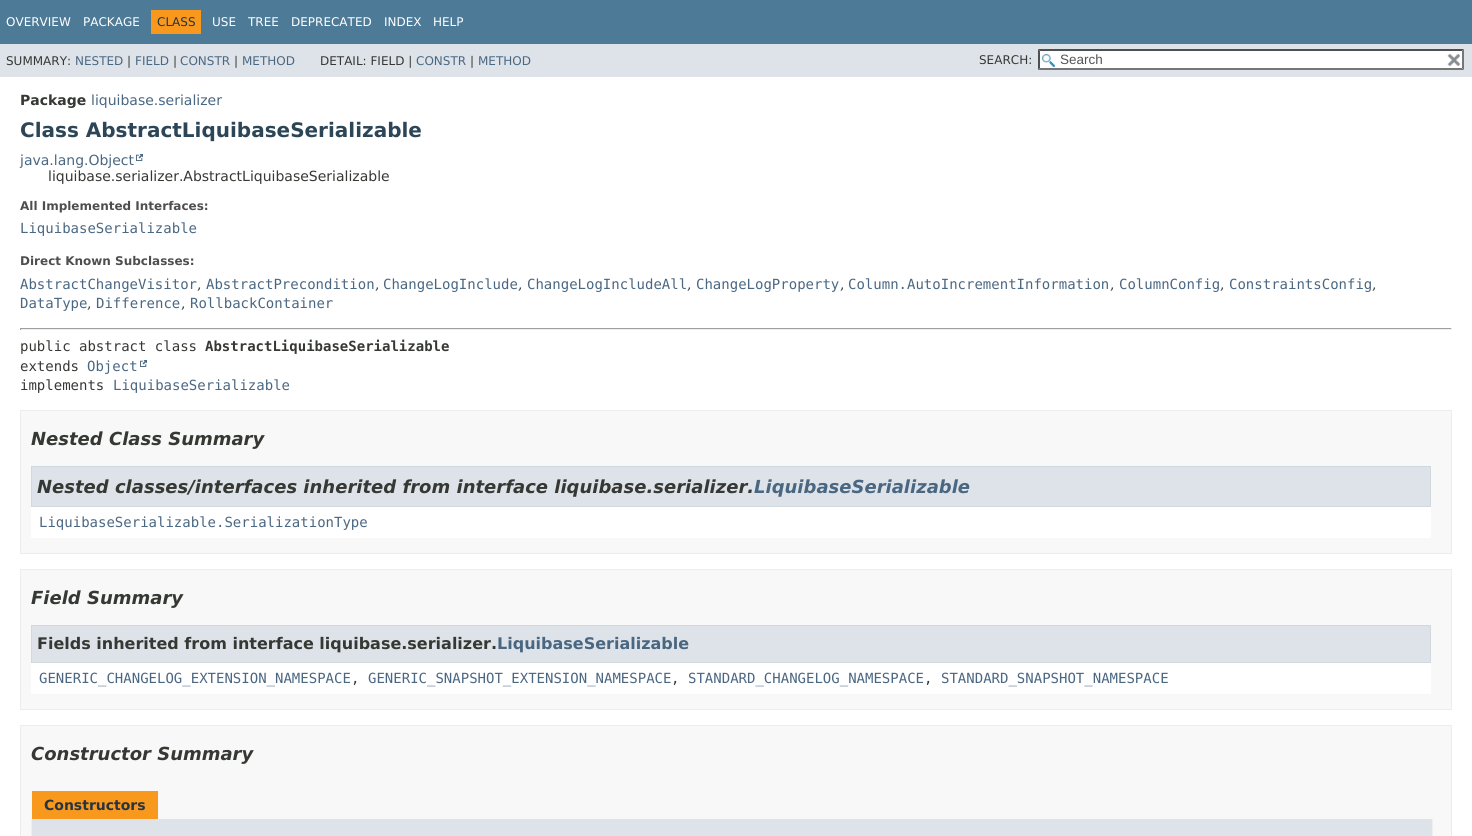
#include <cairo/cairo.h>
#include <math.h>
#include <stddef.h>

typedef struct { double x, y; const char *s; } line_t;
typedef struct { double x, y, w, h; unsigned color; } box_t;
static cairo_t *cr;

static void rgb(unsigned color)
{
	cairo_set_source_rgb(cr, (color >> 16) / 255.0, (color >> 8 & 255) / 255.0, (color & 255) / 255.0);
}

static void image(const char *path, double x, double y, double w, double h)
{
	cairo_surface_t *image = cairo_image_surface_create_from_png(path);
	cairo_save(cr);
	cairo_set_source_surface(cr, image, x, y);
	cairo_rectangle(cr, x, y, w, h);
	cairo_fill(cr);
	cairo_restore(cr);
	cairo_surface_destroy(image);
}

int main(void) {
	cairo_surface_t *surface = cairo_image_surface_create(CAIRO_FORMAT_RGB24, 1472, 836);
	cr = cairo_create(surface);
	cairo_font_options_t *options = cairo_font_options_create();
	cairo_font_options_set_hint_metrics(options, CAIRO_HINT_METRICS_OFF);
	cairo_font_options_set_hint_style(options, CAIRO_HINT_STYLE_NONE);
	cairo_set_font_options(cr, options);
	cairo_set_miter_limit(cr, 4);
	rgb(0xffffff);
	cairo_paint(cr);
	{
		static const box_t items[] = {
			{0, 0, 1472, 44, 0x4d7a97},
			{151, 10, 50, 24, 0xf8981d},
			{0, 44, 1472, 33, 0xdee3e9},
			{1038, 49, 426, 21, 0xffffff},
		};
		for (size_t i = 0; i < sizeof items / sizeof *items; i++) {
			rgb(items[i].color);
			cairo_rectangle(cr, items[i].x, items[i].y, items[i].w, items[i].h);
			cairo_fill(cr);
		}
	}
	image("img/1.png", 1042, 54, 13, 13);
	rgb(0x4f4f4f);
	cairo_new_path(cr);
	cairo_move_to(cr, 1038, 49);
	cairo_line_to(cr, 1464, 49);
	cairo_line_to(cr, 1462, 51);
	cairo_line_to(cr, 1040, 51);
	cairo_close_path(cr);
	cairo_fill(cr);
	rgb(0x767676);
	cairo_new_path(cr);
	cairo_move_to(cr, 1464, 49);
	cairo_line_to(cr, 1464, 70);
	cairo_line_to(cr, 1462, 68);
	cairo_line_to(cr, 1462, 51);
	cairo_close_path(cr);
	cairo_fill(cr);
	cairo_new_path(cr);
	cairo_move_to(cr, 1464, 70);
	cairo_line_to(cr, 1038, 70);
	cairo_line_to(cr, 1040, 68);
	cairo_line_to(cr, 1462, 68);
	cairo_close_path(cr);
	cairo_fill(cr);
	rgb(0x4f4f4f);
	cairo_new_path(cr);
	cairo_move_to(cr, 1038, 70);
	cairo_line_to(cr, 1038, 49);
	cairo_line_to(cr, 1040, 51);
	cairo_line_to(cr, 1040, 68);
	cairo_close_path(cr);
	cairo_fill(cr);
	image("img/2.png", 1447, 54, 14, 12);
	image("img/3.png", 136, 154, 7, 7);
	{
		static const box_t items[] = {
			{20, 328, 1432, 1, 0x9f9f9f},
			{1451, 328, 1, 2, 0xeeeeee},
			{20, 329, 1432, 1, 0xeeeeee},
			{20, 328, 1, 2, 0x9f9f9f},
		};
		for (size_t i = 0; i < sizeof items / sizeof *items; i++) {
			rgb(items[i].color);
			cairo_rectangle(cr, items[i].x, items[i].y, items[i].w, items[i].h);
			cairo_fill(cr);
		}
	}
	image("img/3.png", 140, 360, 7, 7);
	rgb(0xf8f8f8);
	cairo_rectangle(cr, 20.5, 410.5, 1431, 143);
	cairo_fill_preserve(cr);
	rgb(0xededed);
	cairo_set_line_width(cr, 1);
	cairo_stroke(cr);
	rgb(0xffffff);
	cairo_rectangle(cr, 31, 507, 1400, 31);
	cairo_fill(cr);
	rgb(0xdee3e9);
	cairo_rectangle(cr, 31.5, 466.5, 1399, 40);
	cairo_fill_preserve(cr);
	rgb(0xd0d9e0);
	cairo_stroke(cr);
	rgb(0xf8f8f8);
	cairo_rectangle(cr, 20.5, 569.5, 1431, 140);
	cairo_fill_preserve(cr);
	rgb(0xededed);
	cairo_stroke(cr);
	rgb(0xffffff);
	cairo_rectangle(cr, 31, 663, 1400, 31);
	cairo_fill(cr);
	rgb(0xdee3e9);
	cairo_rectangle(cr, 31.5, 625.5, 1399, 37);
	cairo_fill_preserve(cr);
	rgb(0xd0d9e0);
	cairo_stroke(cr);
	rgb(0xf8f8f8);
	cairo_rectangle(cr, 20.5, 725.5, 1431, 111);
	cairo_fill_preserve(cr);
	rgb(0xededed);
	cairo_stroke(cr);
	{
		static const box_t items[] = {
			{32, 791, 126, 28, 0xf8981d},
			{1432, 819, 1, 17, 0xeeeeee},
			{31, 819, 1, 17, 0xeeeeee},
			{32, 819, 1400, 17, 0xdee3e9},
		};
		for (size_t i = 0; i < sizeof items / sizeof *items; i++) {
			rgb(items[i].color);
			cairo_rectangle(cr, items[i].x, items[i].y, items[i].w, items[i].h);
			cairo_fill(cr);
		}
	}
	cairo_select_font_face(cr, "DejaVu Sans", CAIRO_FONT_SLANT_NORMAL, CAIRO_FONT_WEIGHT_NORMAL);
	cairo_set_font_size(cr, 12);
	rgb(0xffffff);
	cairo_move_to(cr, 6, 26);
	cairo_show_text(cr, "OVERVIEW");
	cairo_move_to(cr, 83, 26);
	cairo_show_text(cr, "PACKAGE");
	rgb(0x253441);
	cairo_move_to(cr, 157, 26);
	cairo_show_text(cr, "CLASS");
	rgb(0xffffff);
	{
		static const line_t items[] = {
			{212, 26, "USE"},
			{248, 26, "TREE"},
			{291, 26, "DEPRECATED"},
			{384, 26, "INDEX"},
			{433, 26, "HELP"},
		};
		for (size_t i = 0; i < sizeof items / sizeof *items; i++) {
			cairo_move_to(cr, items[i].x, items[i].y);
			cairo_show_text(cr, items[i].s);
		}
	}
	rgb(0x353833);
	cairo_move_to(cr, 6, 65);
	cairo_show_text(cr, "SUMMARY:");
	rgb(0x4a6782);
	cairo_move_to(cr, 75, 65);
	cairo_show_text(cr, "NESTED");
	rgb(0x353833);
	cairo_move_to(cr, 127, 65);
	cairo_show_text(cr, "|");
	rgb(0x4a6782);
	cairo_move_to(cr, 135, 65);
	cairo_show_text(cr, "FIELD");
	rgb(0x353833);
	cairo_move_to(cr, 173, 65);
	cairo_show_text(cr, "|");
	rgb(0x4a6782);
	cairo_move_to(cr, 180, 65);
	cairo_show_text(cr, "CONSTR");
	rgb(0x353833);
	cairo_move_to(cr, 234, 65);
	cairo_show_text(cr, "|");
	rgb(0x4a6782);
	cairo_move_to(cr, 242, 65);
	cairo_show_text(cr, "METHOD");
	rgb(0x353833);
	cairo_move_to(cr, 320, 65);
	cairo_show_text(cr, "DETAIL: FIELD |");
	rgb(0x4a6782);
	cairo_move_to(cr, 416, 65);
	cairo_show_text(cr, "CONSTR");
	rgb(0x353833);
	cairo_move_to(cr, 470, 65);
	cairo_show_text(cr, "|");
	rgb(0x4a6782);
	cairo_move_to(cr, 478, 65);
	cairo_show_text(cr, "METHOD");
	rgb(0x353833);
	cairo_move_to(cr, 979, 64);
	cairo_show_text(cr, "SEARCH:");
	cairo_select_font_face(cr, "Liberation Sans", CAIRO_FONT_SLANT_NORMAL, CAIRO_FONT_WEIGHT_NORMAL);
	cairo_set_font_size(cr, 13.5);
	rgb(0x545454);
	cairo_move_to(cr, 1060, 64);
	cairo_show_text(cr, "Search");
	cairo_select_font_face(cr, "DejaVu Sans", CAIRO_FONT_SLANT_NORMAL, CAIRO_FONT_WEIGHT_BOLD);
	cairo_set_font_size(cr, 14);
	rgb(0x353833);
	cairo_move_to(cr, 20, 105);
	cairo_show_text(cr, "Package");
	cairo_select_font_face(cr, "DejaVu Sans", CAIRO_FONT_SLANT_NORMAL, CAIRO_FONT_WEIGHT_NORMAL);
	rgb(0x4a6782);
	cairo_move_to(cr, 91, 105);
	cairo_show_text(cr, "liquibase.serializer");
	cairo_select_font_face(cr, "DejaVu Sans", CAIRO_FONT_SLANT_NORMAL, CAIRO_FONT_WEIGHT_BOLD);
	cairo_set_font_size(cr, 20);
	rgb(0x2c4557);
	cairo_move_to(cr, 20, 137);
	cairo_show_text(cr, "Class AbstractLiquibaseSerializable");
	cairo_select_font_face(cr, "DejaVu Sans", CAIRO_FONT_SLANT_NORMAL, CAIRO_FONT_WEIGHT_NORMAL);
	cairo_set_font_size(cr, 14);
	rgb(0x4a6782);
	cairo_move_to(cr, 20, 165);
	cairo_show_text(cr, "java.lang.Object");
	rgb(0x353833);
	cairo_move_to(cr, 48, 181);
	cairo_show_text(cr, "liquibase.serializer.AbstractLiquibaseSerializable");
	cairo_select_font_face(cr, "DejaVu Sans", CAIRO_FONT_SLANT_NORMAL, CAIRO_FONT_WEIGHT_BOLD);
	cairo_set_font_size(cr, 12);
	rgb(0x4e4e4e);
	cairo_move_to(cr, 20, 210);
	cairo_show_text(cr, "All Implemented Interfaces:");
	cairo_select_font_face(cr, "DejaVu Sans Mono", CAIRO_FONT_SLANT_NORMAL, CAIRO_FONT_WEIGHT_NORMAL);
	cairo_set_font_size(cr, 14);
	rgb(0x4a6782);
	cairo_move_to(cr, 20, 233);
	cairo_show_text(cr, "LiquibaseSerializable");
	cairo_select_font_face(cr, "DejaVu Sans", CAIRO_FONT_SLANT_NORMAL, CAIRO_FONT_WEIGHT_BOLD);
	cairo_set_font_size(cr, 12);
	rgb(0x4e4e4e);
	cairo_move_to(cr, 20, 265);
	cairo_show_text(cr, "Direct Known Subclasses:");
	cairo_select_font_face(cr, "DejaVu Sans Mono", CAIRO_FONT_SLANT_NORMAL, CAIRO_FONT_WEIGHT_NORMAL);
	cairo_set_font_size(cr, 14);
	rgb(0x4a6782);
	cairo_move_to(cr, 20, 289);
	cairo_show_text(cr, "AbstractChangeVisitor");
	cairo_select_font_face(cr, "DejaVu Serif", CAIRO_FONT_SLANT_NORMAL, CAIRO_FONT_WEIGHT_NORMAL);
	rgb(0x353833);
	cairo_move_to(cr, 197, 289);
	cairo_show_text(cr, ",");
	cairo_select_font_face(cr, "DejaVu Sans Mono", CAIRO_FONT_SLANT_NORMAL, CAIRO_FONT_WEIGHT_NORMAL);
	rgb(0x4a6782);
	cairo_move_to(cr, 206, 289);
	cairo_show_text(cr, "AbstractPrecondition");
	cairo_select_font_face(cr, "DejaVu Serif", CAIRO_FONT_SLANT_NORMAL, CAIRO_FONT_WEIGHT_NORMAL);
	rgb(0x353833);
	cairo_move_to(cr, 375, 289);
	cairo_show_text(cr, ",");
	cairo_select_font_face(cr, "DejaVu Sans Mono", CAIRO_FONT_SLANT_NORMAL, CAIRO_FONT_WEIGHT_NORMAL);
	rgb(0x4a6782);
	cairo_move_to(cr, 383, 289);
	cairo_show_text(cr, "ChangeLogInclude");
	cairo_select_font_face(cr, "DejaVu Serif", CAIRO_FONT_SLANT_NORMAL, CAIRO_FONT_WEIGHT_NORMAL);
	rgb(0x353833);
	cairo_move_to(cr, 518, 289);
	cairo_show_text(cr, ",");
	cairo_select_font_face(cr, "DejaVu Sans Mono", CAIRO_FONT_SLANT_NORMAL, CAIRO_FONT_WEIGHT_NORMAL);
	rgb(0x4a6782);
	cairo_move_to(cr, 527, 289);
	cairo_show_text(cr, "ChangeLogIncludeAll");
	cairo_select_font_face(cr, "DejaVu Serif", CAIRO_FONT_SLANT_NORMAL, CAIRO_FONT_WEIGHT_NORMAL);
	rgb(0x353833);
	cairo_move_to(cr, 687, 289);
	cairo_show_text(cr, ",");
	cairo_select_font_face(cr, "DejaVu Sans Mono", CAIRO_FONT_SLANT_NORMAL, CAIRO_FONT_WEIGHT_NORMAL);
	rgb(0x4a6782);
	cairo_move_to(cr, 696, 289);
	cairo_show_text(cr, "ChangeLogProperty");
	cairo_select_font_face(cr, "DejaVu Serif", CAIRO_FONT_SLANT_NORMAL, CAIRO_FONT_WEIGHT_NORMAL);
	rgb(0x353833);
	cairo_move_to(cr, 840, 289);
	cairo_show_text(cr, ",");
	cairo_select_font_face(cr, "DejaVu Sans Mono", CAIRO_FONT_SLANT_NORMAL, CAIRO_FONT_WEIGHT_NORMAL);
	rgb(0x4a6782);
	cairo_move_to(cr, 848, 289);
	cairo_show_text(cr, "Column.AutoIncrementInformation");
	cairo_select_font_face(cr, "DejaVu Serif", CAIRO_FONT_SLANT_NORMAL, CAIRO_FONT_WEIGHT_NORMAL);
	rgb(0x353833);
	cairo_move_to(cr, 1110, 289);
	cairo_show_text(cr, ",");
	cairo_select_font_face(cr, "DejaVu Sans Mono", CAIRO_FONT_SLANT_NORMAL, CAIRO_FONT_WEIGHT_NORMAL);
	rgb(0x4a6782);
	cairo_move_to(cr, 1119, 289);
	cairo_show_text(cr, "ColumnConfig");
	cairo_select_font_face(cr, "DejaVu Serif", CAIRO_FONT_SLANT_NORMAL, CAIRO_FONT_WEIGHT_NORMAL);
	rgb(0x353833);
	cairo_move_to(cr, 1220, 289);
	cairo_show_text(cr, ",");
	cairo_select_font_face(cr, "DejaVu Sans Mono", CAIRO_FONT_SLANT_NORMAL, CAIRO_FONT_WEIGHT_NORMAL);
	rgb(0x4a6782);
	cairo_move_to(cr, 1229, 289);
	cairo_show_text(cr, "ConstraintsConfig");
	cairo_select_font_face(cr, "DejaVu Serif", CAIRO_FONT_SLANT_NORMAL, CAIRO_FONT_WEIGHT_NORMAL);
	rgb(0x353833);
	cairo_move_to(cr, 1372, 289);
	cairo_show_text(cr, ",");
	cairo_select_font_face(cr, "DejaVu Sans Mono", CAIRO_FONT_SLANT_NORMAL, CAIRO_FONT_WEIGHT_NORMAL);
	rgb(0x4a6782);
	cairo_move_to(cr, 20, 308);
	cairo_show_text(cr, "DataType");
	cairo_select_font_face(cr, "DejaVu Serif", CAIRO_FONT_SLANT_NORMAL, CAIRO_FONT_WEIGHT_NORMAL);
	rgb(0x353833);
	cairo_move_to(cr, 87, 308);
	cairo_show_text(cr, ",");
	cairo_select_font_face(cr, "DejaVu Sans Mono", CAIRO_FONT_SLANT_NORMAL, CAIRO_FONT_WEIGHT_NORMAL);
	rgb(0x4a6782);
	cairo_move_to(cr, 96, 308);
	cairo_show_text(cr, "Difference");
	cairo_select_font_face(cr, "DejaVu Serif", CAIRO_FONT_SLANT_NORMAL, CAIRO_FONT_WEIGHT_NORMAL);
	rgb(0x353833);
	cairo_move_to(cr, 181, 308);
	cairo_show_text(cr, ",");
	cairo_select_font_face(cr, "DejaVu Sans Mono", CAIRO_FONT_SLANT_NORMAL, CAIRO_FONT_WEIGHT_NORMAL);
	rgb(0x4a6782);
	cairo_move_to(cr, 190, 308);
	cairo_show_text(cr, "RollbackContainer");
	rgb(0x353833);
	cairo_move_to(cr, 20, 351);
	cairo_show_text(cr, "public abstract class");
	cairo_select_font_face(cr, "DejaVu Sans Mono", CAIRO_FONT_SLANT_NORMAL, CAIRO_FONT_WEIGHT_BOLD);
	cairo_move_to(cr, 205, 351);
	cairo_show_text(cr, "AbstractLiquibaseSerializable");
	cairo_select_font_face(cr, "DejaVu Sans Mono", CAIRO_FONT_SLANT_NORMAL, CAIRO_FONT_WEIGHT_NORMAL);
	cairo_move_to(cr, 20, 371);
	cairo_show_text(cr, "extends");
	rgb(0x4a6782);
	cairo_move_to(cr, 87, 371);
	cairo_show_text(cr, "Object");
	rgb(0x353833);
	cairo_move_to(cr, 20, 390);
	cairo_show_text(cr, "implements");
	rgb(0x4a6782);
	cairo_move_to(cr, 113, 390);
	cairo_show_text(cr, "LiquibaseSerializable");
	cairo_select_font_face(cr, "DejaVu Sans", CAIRO_FONT_SLANT_ITALIC, CAIRO_FONT_WEIGHT_BOLD);
	cairo_set_font_size(cr, 18);
	rgb(0x353833);
	cairo_move_to(cr, 31, 445);
	cairo_show_text(cr, "Nested Class Summary");
	cairo_move_to(cr, 37, 493);
	cairo_show_text(cr, "Nested classes/interfaces inherited from interface liquibase.serializer.");
	rgb(0x4a6782);
	cairo_move_to(cr, 754, 493);
	cairo_show_text(cr, "LiquibaseSerializable");
	cairo_select_font_face(cr, "DejaVu Sans Mono", CAIRO_FONT_SLANT_NORMAL, CAIRO_FONT_WEIGHT_NORMAL);
	cairo_set_font_size(cr, 14);
	cairo_move_to(cr, 39, 527);
	cairo_show_text(cr, "LiquibaseSerializable.SerializationType");
	cairo_select_font_face(cr, "DejaVu Sans", CAIRO_FONT_SLANT_ITALIC, CAIRO_FONT_WEIGHT_BOLD);
	cairo_set_font_size(cr, 18);
	rgb(0x353833);
	cairo_move_to(cr, 31, 604);
	cairo_show_text(cr, "Field Summary");
	cairo_select_font_face(cr, "DejaVu Sans", CAIRO_FONT_SLANT_NORMAL, CAIRO_FONT_WEIGHT_BOLD);
	cairo_set_font_size(cr, 16);
	cairo_move_to(cr, 37, 649);
	cairo_show_text(cr, "Fields inherited from interface liquibase.serializer.");
	rgb(0x4a6782);
	cairo_move_to(cr, 497, 649);
	cairo_show_text(cr, "LiquibaseSerializable");
	cairo_select_font_face(cr, "DejaVu Sans Mono", CAIRO_FONT_SLANT_NORMAL, CAIRO_FONT_WEIGHT_NORMAL);
	cairo_set_font_size(cr, 14);
	cairo_move_to(cr, 39, 683);
	cairo_show_text(cr, "GENERIC_CHANGELOG_EXTENSION_NAMESPACE");
	rgb(0x353833);
	cairo_move_to(cr, 351, 683);
	cairo_show_text(cr, ",");
	rgb(0x4a6782);
	cairo_move_to(cr, 368, 683);
	cairo_show_text(cr, "GENERIC_SNAPSHOT_EXTENSION_NAMESPACE");
	rgb(0x353833);
	cairo_move_to(cr, 671, 683);
	cairo_show_text(cr, ",");
	rgb(0x4a6782);
	cairo_move_to(cr, 688, 683);
	cairo_show_text(cr, "STANDARD_CHANGELOG_NAMESPACE");
	rgb(0x353833);
	cairo_move_to(cr, 924, 683);
	cairo_show_text(cr, ",");
	rgb(0x4a6782);
	cairo_move_to(cr, 941, 683);
	cairo_show_text(cr, "STANDARD_SNAPSHOT_NAMESPACE");
	cairo_select_font_face(cr, "DejaVu Sans", CAIRO_FONT_SLANT_ITALIC, CAIRO_FONT_WEIGHT_BOLD);
	cairo_set_font_size(cr, 18);
	rgb(0x353833);
	cairo_move_to(cr, 31, 760);
	cairo_show_text(cr, "Constructor Summary");
	cairo_select_font_face(cr, "DejaVu Sans", CAIRO_FONT_SLANT_NORMAL, CAIRO_FONT_WEIGHT_BOLD);
	cairo_set_font_size(cr, 14);
	rgb(0x253441);
	cairo_move_to(cr, 44, 810);
	cairo_show_text(cr, "Constructors");
	cairo_surface_write_to_png(surface, "page.png");
	cairo_font_options_destroy(options);
	cairo_destroy(cr);
	cairo_surface_destroy(surface);
	return 0;
}
